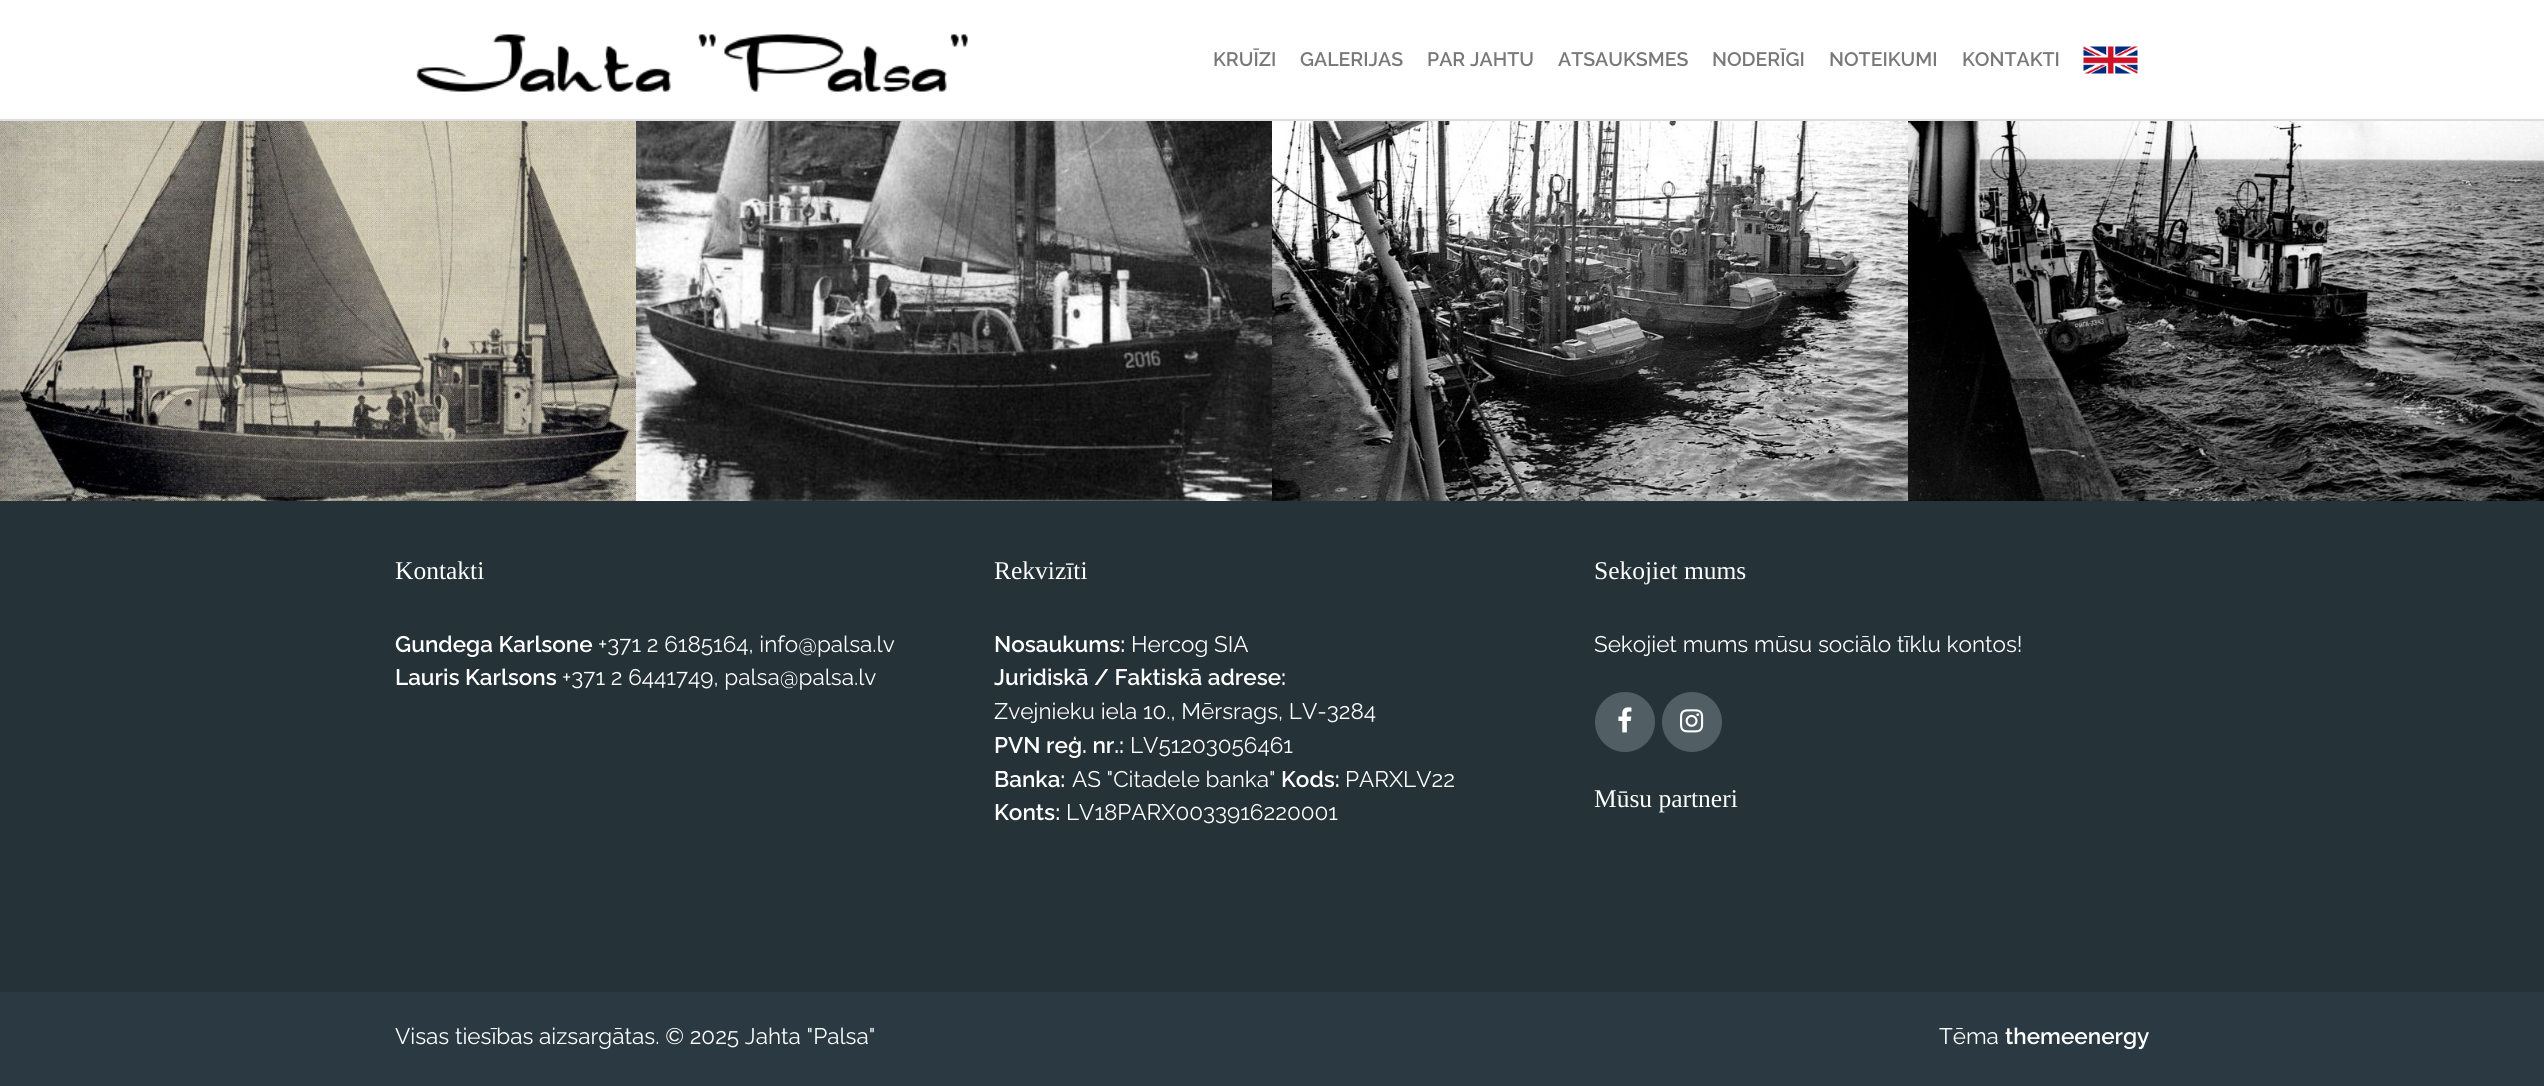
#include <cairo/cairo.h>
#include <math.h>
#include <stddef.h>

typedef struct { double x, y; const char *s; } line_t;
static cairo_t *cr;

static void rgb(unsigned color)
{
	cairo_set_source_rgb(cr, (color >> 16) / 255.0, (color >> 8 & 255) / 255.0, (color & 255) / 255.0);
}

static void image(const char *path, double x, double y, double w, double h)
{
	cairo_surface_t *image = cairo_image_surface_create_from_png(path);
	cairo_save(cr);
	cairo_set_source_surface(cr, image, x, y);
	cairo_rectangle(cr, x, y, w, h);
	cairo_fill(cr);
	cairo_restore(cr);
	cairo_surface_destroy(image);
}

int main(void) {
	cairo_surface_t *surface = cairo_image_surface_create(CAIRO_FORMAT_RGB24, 2544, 1086);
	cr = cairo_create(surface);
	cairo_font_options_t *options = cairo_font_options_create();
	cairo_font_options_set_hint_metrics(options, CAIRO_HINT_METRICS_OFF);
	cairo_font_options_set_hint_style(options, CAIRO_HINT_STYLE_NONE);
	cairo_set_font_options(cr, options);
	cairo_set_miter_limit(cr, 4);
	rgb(0x253238);
	cairo_paint(cr);
	rgb(0xffffff);
	cairo_rectangle(cr, 0, 0, 2544, 119);
	cairo_fill(cr);
	rgb(0xdddddd);
	cairo_rectangle(cr, 0, 119, 2544, 2);
	cairo_fill(cr);
	image("img/1.png", 416, 34, 552, 58);
	image("img/2.png", 2083, 46, 55, 28);
	image("img/3.png", 0, 121, 636, 380);
	image("img/4.png", 636, 121, 636, 380);
	image("img/5.png", 1272, 121, 636, 380);
	image("img/6.png", 1908, 121, 636, 380);
	rgb(0x515e64);
	cairo_arc(cr, 1625, 722, 30, 0, 2 * M_PI);
	cairo_fill(cr);
	image("img/7.png", 1618, 707, 14, 26);
	cairo_arc(cr, 1692, 722, 30, 0, 2 * M_PI);
	cairo_fill(cr);
	image("img/8.png", 1680, 709, 24, 24);
	rgb(0x2b3a42);
	cairo_rectangle(cr, 0, 992, 2544, 94);
	cairo_fill(cr);
	cairo_select_font_face(cr, "Raleway SemiBold", CAIRO_FONT_SLANT_NORMAL, CAIRO_FONT_WEIGHT_NORMAL);
	cairo_set_font_size(cr, 19.5);
	rgb(0x787878);
	{
		static const line_t items[] = {
			{1213, 66, "KRUĪZI"},
			{1300, 66, "GALERIJAS"},
			{1427, 66, "PAR JAHTU"},
			{1558, 66, "ATSAUKSMES"},
			{1712, 66, "NODERĪGI"},
			{1829, 66, "NOTEIKUMI"},
			{1962, 66, "KONTAKTI"},
		};
		for (size_t i = 0; i < sizeof items / sizeof *items; i++) {
			cairo_move_to(cr, items[i].x, items[i].y);
			cairo_show_text(cr, items[i].s);
		}
	}
	cairo_select_font_face(cr, "Liberation Serif", CAIRO_FONT_SLANT_NORMAL, CAIRO_FONT_WEIGHT_NORMAL);
	cairo_set_font_size(cr, 25.5);
	rgb(0xffffff);
	cairo_move_to(cr, 395, 579);
	cairo_show_text(cr, "Kontakti");
	cairo_select_font_face(cr, "Raleway SemiBold", CAIRO_FONT_SLANT_NORMAL, CAIRO_FONT_WEIGHT_NORMAL);
	cairo_set_font_size(cr, 22.5);
	cairo_move_to(cr, 395, 652);
	cairo_show_text(cr, "Gundega Karlsone");
	cairo_select_font_face(cr, "Raleway", CAIRO_FONT_SLANT_NORMAL, CAIRO_FONT_WEIGHT_NORMAL);
	cairo_move_to(cr, 598, 652);
	cairo_show_text(cr, "+371 2 6185164, info@palsa.lv");
	cairo_select_font_face(cr, "Raleway SemiBold", CAIRO_FONT_SLANT_NORMAL, CAIRO_FONT_WEIGHT_NORMAL);
	cairo_move_to(cr, 395, 685);
	cairo_show_text(cr, "Lauris Karlsons");
	cairo_select_font_face(cr, "Raleway", CAIRO_FONT_SLANT_NORMAL, CAIRO_FONT_WEIGHT_NORMAL);
	cairo_move_to(cr, 562, 685);
	cairo_show_text(cr, "+371 2 6441749, palsa@palsa.lv");
	cairo_select_font_face(cr, "Liberation Serif", CAIRO_FONT_SLANT_NORMAL, CAIRO_FONT_WEIGHT_NORMAL);
	cairo_set_font_size(cr, 25.5);
	cairo_move_to(cr, 994, 579);
	cairo_show_text(cr, "Rekvizīti");
	cairo_select_font_face(cr, "Raleway SemiBold", CAIRO_FONT_SLANT_NORMAL, CAIRO_FONT_WEIGHT_NORMAL);
	cairo_set_font_size(cr, 22.5);
	cairo_move_to(cr, 994, 652);
	cairo_show_text(cr, "Nosaukums:");
	cairo_select_font_face(cr, "Raleway", CAIRO_FONT_SLANT_NORMAL, CAIRO_FONT_WEIGHT_NORMAL);
	cairo_move_to(cr, 1131, 652);
	cairo_show_text(cr, "Hercog SIA");
	cairo_select_font_face(cr, "Raleway SemiBold", CAIRO_FONT_SLANT_NORMAL, CAIRO_FONT_WEIGHT_NORMAL);
	cairo_move_to(cr, 994, 685);
	cairo_show_text(cr, "Juridiskā / Faktiskā adrese:");
	cairo_select_font_face(cr, "Raleway", CAIRO_FONT_SLANT_NORMAL, CAIRO_FONT_WEIGHT_NORMAL);
	cairo_move_to(cr, 994, 719);
	cairo_show_text(cr, "Zvejnieku iela 10., Mērsrags, LV-3284");
	cairo_select_font_face(cr, "Raleway SemiBold", CAIRO_FONT_SLANT_NORMAL, CAIRO_FONT_WEIGHT_NORMAL);
	cairo_move_to(cr, 994, 753);
	cairo_show_text(cr, "PVN reģ. nr.:");
	cairo_select_font_face(cr, "Raleway", CAIRO_FONT_SLANT_NORMAL, CAIRO_FONT_WEIGHT_NORMAL);
	cairo_move_to(cr, 1130, 753);
	cairo_show_text(cr, "LV51203056461");
	cairo_select_font_face(cr, "Raleway SemiBold", CAIRO_FONT_SLANT_NORMAL, CAIRO_FONT_WEIGHT_NORMAL);
	cairo_move_to(cr, 994, 787);
	cairo_show_text(cr, "Banka:");
	cairo_select_font_face(cr, "Raleway", CAIRO_FONT_SLANT_NORMAL, CAIRO_FONT_WEIGHT_NORMAL);
	cairo_move_to(cr, 1072, 787);
	cairo_show_text(cr, "AS \"Citadele banka\"");
	cairo_select_font_face(cr, "Raleway SemiBold", CAIRO_FONT_SLANT_NORMAL, CAIRO_FONT_WEIGHT_NORMAL);
	cairo_move_to(cr, 1281, 787);
	cairo_show_text(cr, "Kods:");
	cairo_select_font_face(cr, "Raleway", CAIRO_FONT_SLANT_NORMAL, CAIRO_FONT_WEIGHT_NORMAL);
	cairo_move_to(cr, 1345, 787);
	cairo_show_text(cr, "PARXLV22");
	cairo_select_font_face(cr, "Raleway SemiBold", CAIRO_FONT_SLANT_NORMAL, CAIRO_FONT_WEIGHT_NORMAL);
	cairo_move_to(cr, 994, 820);
	cairo_show_text(cr, "Konts:");
	cairo_select_font_face(cr, "Raleway", CAIRO_FONT_SLANT_NORMAL, CAIRO_FONT_WEIGHT_NORMAL);
	cairo_move_to(cr, 1066, 820);
	cairo_show_text(cr, "LV18PARX0033916220001");
	cairo_select_font_face(cr, "Liberation Serif", CAIRO_FONT_SLANT_NORMAL, CAIRO_FONT_WEIGHT_NORMAL);
	cairo_set_font_size(cr, 25.5);
	cairo_move_to(cr, 1594, 579);
	cairo_show_text(cr, "Sekojiet mums");
	cairo_select_font_face(cr, "Raleway", CAIRO_FONT_SLANT_NORMAL, CAIRO_FONT_WEIGHT_NORMAL);
	cairo_set_font_size(cr, 22.5);
	cairo_move_to(cr, 1594, 652);
	cairo_show_text(cr, "Sekojiet mums mūsu sociālo tīklu kontos!");
	cairo_select_font_face(cr, "Liberation Serif", CAIRO_FONT_SLANT_NORMAL, CAIRO_FONT_WEIGHT_NORMAL);
	cairo_set_font_size(cr, 25.5);
	cairo_move_to(cr, 1594, 807);
	cairo_show_text(cr, "Mūsu partneri");
	cairo_select_font_face(cr, "Raleway", CAIRO_FONT_SLANT_NORMAL, CAIRO_FONT_WEIGHT_NORMAL);
	cairo_set_font_size(cr, 22.5);
	cairo_move_to(cr, 395, 1044);
	cairo_show_text(cr, "Visas tiesības aizsargātas. © 2025 Jahta \"Palsa\"");
	cairo_move_to(cr, 1939, 1044);
	cairo_show_text(cr, "Tēma");
	cairo_select_font_face(cr, "Raleway SemiBold", CAIRO_FONT_SLANT_NORMAL, CAIRO_FONT_WEIGHT_NORMAL);
	cairo_move_to(cr, 2005, 1044);
	cairo_show_text(cr, "themeenergy");
	cairo_surface_write_to_png(surface, "page.png");
	cairo_font_options_destroy(options);
	cairo_destroy(cr);
	cairo_surface_destroy(surface);
	return 0;
}
